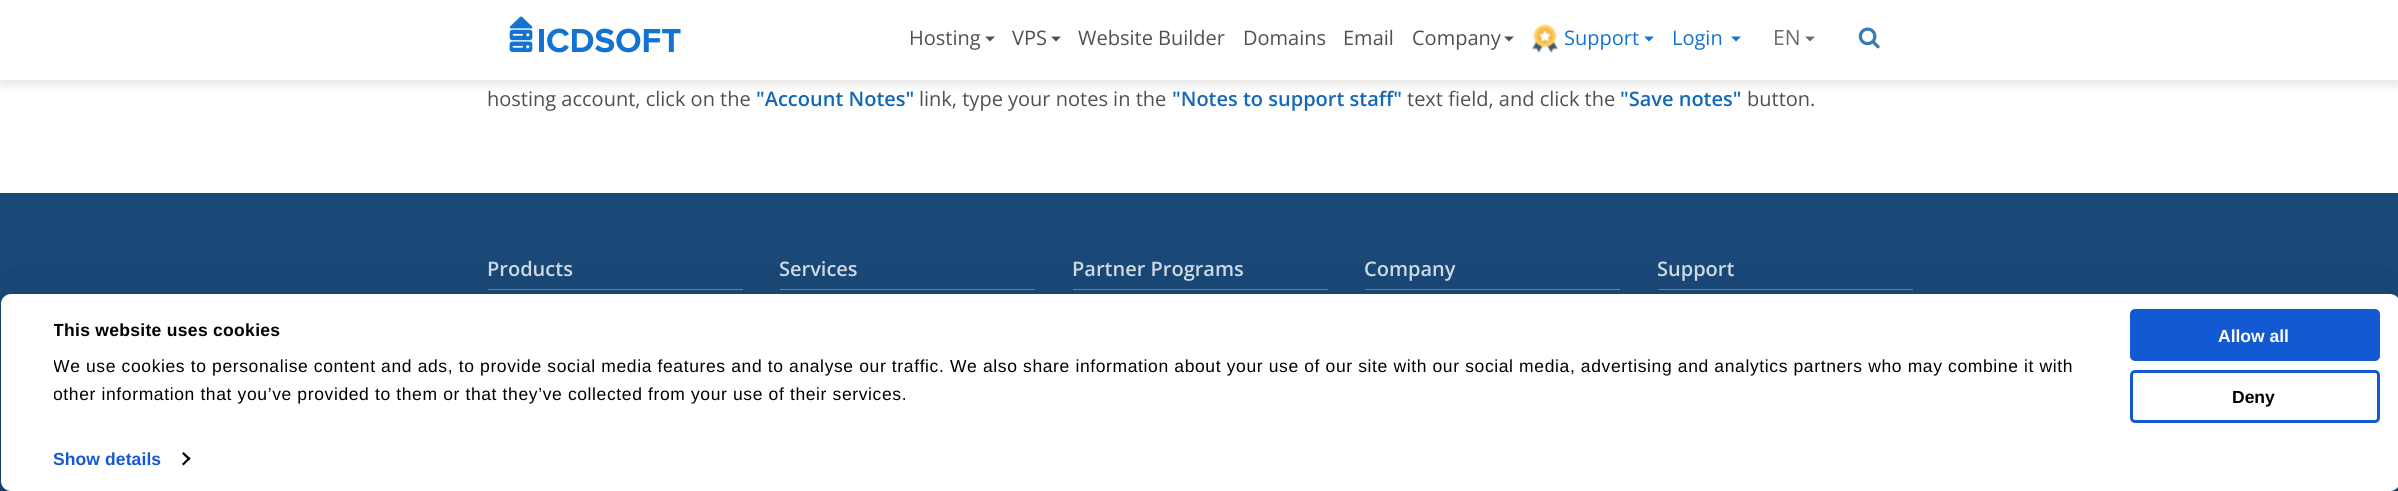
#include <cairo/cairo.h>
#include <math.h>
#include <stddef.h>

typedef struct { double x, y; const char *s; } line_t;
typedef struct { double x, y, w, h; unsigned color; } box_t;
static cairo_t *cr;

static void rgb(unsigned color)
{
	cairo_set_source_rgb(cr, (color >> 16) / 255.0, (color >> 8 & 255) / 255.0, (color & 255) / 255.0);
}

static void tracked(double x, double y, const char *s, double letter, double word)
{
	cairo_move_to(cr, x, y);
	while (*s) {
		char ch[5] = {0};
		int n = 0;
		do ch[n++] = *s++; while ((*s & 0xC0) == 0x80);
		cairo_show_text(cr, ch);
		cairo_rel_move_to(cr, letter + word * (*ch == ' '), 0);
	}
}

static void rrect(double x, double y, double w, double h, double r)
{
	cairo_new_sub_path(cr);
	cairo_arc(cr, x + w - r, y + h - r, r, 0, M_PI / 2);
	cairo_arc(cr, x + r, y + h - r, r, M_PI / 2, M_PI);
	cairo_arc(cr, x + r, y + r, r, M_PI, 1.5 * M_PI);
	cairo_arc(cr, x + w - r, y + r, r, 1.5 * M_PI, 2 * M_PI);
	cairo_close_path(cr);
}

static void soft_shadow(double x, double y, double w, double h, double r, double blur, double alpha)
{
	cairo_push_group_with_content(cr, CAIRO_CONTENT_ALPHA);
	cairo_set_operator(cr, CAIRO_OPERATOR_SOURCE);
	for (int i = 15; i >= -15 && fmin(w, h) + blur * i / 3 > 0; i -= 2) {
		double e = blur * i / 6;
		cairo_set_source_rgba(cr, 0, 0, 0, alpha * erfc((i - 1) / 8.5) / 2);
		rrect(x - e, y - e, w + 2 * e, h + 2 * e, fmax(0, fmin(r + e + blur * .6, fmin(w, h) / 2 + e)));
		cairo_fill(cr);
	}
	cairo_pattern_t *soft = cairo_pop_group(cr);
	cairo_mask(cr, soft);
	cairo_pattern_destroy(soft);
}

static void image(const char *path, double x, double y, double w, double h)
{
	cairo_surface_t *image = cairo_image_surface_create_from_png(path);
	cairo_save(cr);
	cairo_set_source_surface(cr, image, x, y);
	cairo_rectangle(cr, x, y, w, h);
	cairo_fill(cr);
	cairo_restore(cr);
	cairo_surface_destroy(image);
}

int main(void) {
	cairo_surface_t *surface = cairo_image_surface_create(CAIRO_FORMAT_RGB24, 2398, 491);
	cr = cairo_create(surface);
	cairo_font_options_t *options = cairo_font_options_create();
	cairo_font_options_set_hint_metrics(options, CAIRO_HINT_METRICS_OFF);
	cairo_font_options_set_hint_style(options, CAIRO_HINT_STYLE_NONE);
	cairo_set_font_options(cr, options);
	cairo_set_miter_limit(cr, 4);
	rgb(0xffffff);
	cairo_paint(cr);
	rgb(0x000000);
	soft_shadow(0, 5, 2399, 80, 0, 5, 0.1);
	rgb(0xffffff);
	cairo_rectangle(cr, 0, 0, 2398, 80);
	cairo_fill(cr);
	image("img/1.png", 509, 16, 172, 37);
	rgb(0x505050);
	cairo_new_path(cr);
	cairo_move_to(cr, 985, 36.5);
	cairo_line_to(cr, 995, 36.5);
	cairo_line_to(cr, 990, 41.5);
	cairo_close_path(cr);
	cairo_fill(cr);
	cairo_new_path(cr);
	cairo_move_to(cr, 1051, 36.5);
	cairo_line_to(cr, 1061, 36.5);
	cairo_line_to(cr, 1056, 41.5);
	cairo_close_path(cr);
	cairo_fill(cr);
	cairo_new_path(cr);
	cairo_move_to(cr, 1504, 36.5);
	cairo_line_to(cr, 1514, 36.5);
	cairo_line_to(cr, 1509, 41.5);
	cairo_close_path(cr);
	cairo_fill(cr);
	image("img/2.png", 1532, 24, 27, 29);
	rgb(0x1273d1);
	cairo_new_path(cr);
	cairo_move_to(cr, 1644, 36.5);
	cairo_line_to(cr, 1654, 36.5);
	cairo_line_to(cr, 1649, 41.5);
	cairo_close_path(cr);
	cairo_fill(cr);
	cairo_new_path(cr);
	cairo_move_to(cr, 1731, 36.5);
	cairo_line_to(cr, 1741, 36.5);
	cairo_line_to(cr, 1736, 41.5);
	cairo_close_path(cr);
	cairo_fill(cr);
	rgb(0x6d6d6d);
	cairo_new_path(cr);
	cairo_move_to(cr, 1805, 36.5);
	cairo_line_to(cr, 1815, 36.5);
	cairo_line_to(cr, 1810, 41.5);
	cairo_close_path(cr);
	cairo_fill(cr);
	image("img/3.png", 1858, 27, 22, 22);
	{
		static const box_t items[] = {
			{0, 193, 2398, 298, 0x1a4978},
			{488, 289, 255, 1, 0x668ab2},
			{780, 289, 255, 1, 0x668ab2},
			{1073, 289, 255, 1, 0x668ab2},
			{1365, 289, 255, 1, 0x668ab2},
			{1658, 289, 255, 1, 0x668ab2},
		};
		for (size_t i = 0; i < sizeof items / sizeof *items; i++) {
			rgb(items[i].color);
			cairo_rectangle(cr, items[i].x, items[i].y, items[i].w, items[i].h);
			cairo_fill(cr);
		}
	}
	cairo_save(cr);
	cairo_set_fill_rule(cr, CAIRO_FILL_RULE_EVEN_ODD);
	cairo_new_path(cr);
	cairo_move_to(cr, 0, 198);
	cairo_line_to(cr, 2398, 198);
	cairo_line_to(cr, 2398, 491);
	cairo_line_to(cr, 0, 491);
	cairo_close_path(cr);
	cairo_move_to(cr, 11, 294);
	cairo_line_to(cr, 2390, 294);
	cairo_curve_to(cr, 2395.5, 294, 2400, 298.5, 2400, 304);
	cairo_line_to(cr, 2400, 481);
	cairo_curve_to(cr, 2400, 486.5, 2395.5, 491, 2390, 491);
	cairo_line_to(cr, 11, 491);
	cairo_curve_to(cr, 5.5, 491, 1, 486.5, 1, 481);
	cairo_line_to(cr, 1, 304);
	cairo_curve_to(cr, 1, 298.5, 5.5, 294, 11, 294);
	cairo_close_path(cr);
	cairo_clip(cr);
	rgb(0x000000);
	soft_shadow(1, 331, 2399, 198, 10, 44, 0.3);
	cairo_restore(cr);
	rgb(0xffffff);
	rrect(1, 294, 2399, 197, 10);
	cairo_fill(cr);
	rgb(0x000000);
	cairo_new_path(cr);
	cairo_move_to(cr, 183.5, 452);
	cairo_line_to(cr, 190.5, 458.5);
	cairo_line_to(cr, 189, 460.5);
	cairo_line_to(cr, 182, 453.5);
	cairo_close_path(cr);
	cairo_fill(cr);
	cairo_new_path(cr);
	cairo_move_to(cr, 189, 457);
	cairo_line_to(cr, 190.5, 458.5);
	cairo_line_to(cr, 183.5, 465.5);
	cairo_line_to(cr, 182, 464);
	cairo_close_path(cr);
	cairo_fill(cr);
	rgb(0x1359d1);
	rrect(2131.5, 310.5, 247, 49, 3.5);
	cairo_fill_preserve(cr);
	cairo_set_line_width(cr, 3);
	cairo_stroke(cr);
	rrect(2131.5, 371.5, 247, 50, 3.5);
	cairo_stroke(cr);
	cairo_select_font_face(cr, "Open Sans", CAIRO_FONT_SLANT_NORMAL, CAIRO_FONT_WEIGHT_NORMAL);
	cairo_set_font_size(cr, 20);
	rgb(0x505050);
	{
		static const line_t items[] = {
			{909, 45, "Hosting"},
			{1012, 45, "VPS"},
			{1078, 45, "Website Builder"},
			{1243, 45, "Domains"},
			{1343, 45, "Email"},
			{1412, 45, "Company"},
		};
		for (size_t i = 0; i < sizeof items / sizeof *items; i++) {
			cairo_move_to(cr, items[i].x, items[i].y);
			cairo_show_text(cr, items[i].s);
		}
	}
	rgb(0x1273d1);
	cairo_move_to(cr, 1564, 45);
	cairo_show_text(cr, "Support");
	cairo_move_to(cr, 1672, 45);
	cairo_show_text(cr, "Login");
	cairo_set_font_size(cr, 21);
	rgb(0x6d6d6d);
	cairo_move_to(cr, 1773, 45);
	cairo_show_text(cr, "EN");
	cairo_set_font_size(cr, 20);
	rgb(0x505050);
	cairo_move_to(cr, 487, 106);
	cairo_show_text(cr, "hosting account, click on the");
	cairo_select_font_face(cr, "Open Sans SemiBold", CAIRO_FONT_SLANT_NORMAL, CAIRO_FONT_WEIGHT_NORMAL);
	rgb(0x1468b6);
	cairo_move_to(cr, 756, 106);
	cairo_show_text(cr, "\"Account Notes\"");
	cairo_select_font_face(cr, "Open Sans", CAIRO_FONT_SLANT_NORMAL, CAIRO_FONT_WEIGHT_NORMAL);
	rgb(0x505050);
	cairo_move_to(cr, 919, 106);
	cairo_show_text(cr, "link, type your notes in the");
	cairo_select_font_face(cr, "Open Sans SemiBold", CAIRO_FONT_SLANT_NORMAL, CAIRO_FONT_WEIGHT_NORMAL);
	rgb(0x1468b6);
	cairo_move_to(cr, 1172, 106);
	cairo_show_text(cr, "\"Notes to support staff\"");
	cairo_select_font_face(cr, "Open Sans", CAIRO_FONT_SLANT_NORMAL, CAIRO_FONT_WEIGHT_NORMAL);
	rgb(0x505050);
	cairo_move_to(cr, 1407, 106);
	cairo_show_text(cr, "text field, and click the");
	cairo_select_font_face(cr, "Open Sans SemiBold", CAIRO_FONT_SLANT_NORMAL, CAIRO_FONT_WEIGHT_NORMAL);
	rgb(0x1468b6);
	cairo_move_to(cr, 1620, 106);
	cairo_show_text(cr, "\"Save notes\"");
	cairo_select_font_face(cr, "Open Sans", CAIRO_FONT_SLANT_NORMAL, CAIRO_FONT_WEIGHT_NORMAL);
	rgb(0x505050);
	cairo_move_to(cr, 1747, 106);
	cairo_show_text(cr, "button.");
	cairo_select_font_face(cr, "Open Sans SemiBold", CAIRO_FONT_SLANT_NORMAL, CAIRO_FONT_WEIGHT_NORMAL);
	rgb(0xced9e4);
	{
		static const line_t items[] = {
			{487, 276, "Products"},
			{779, 276, "Services"},
			{1072, 276, "Partner Programs"},
			{1364, 276, "Company"},
			{1657, 276, "Support"},
		};
		for (size_t i = 0; i < sizeof items / sizeof *items; i++) {
			cairo_move_to(cr, items[i].x, items[i].y);
			cairo_show_text(cr, items[i].s);
		}
	}
	cairo_save(cr);
	cairo_rectangle(cr, 54, 315, 2042, 93);
	cairo_clip(cr);
	cairo_select_font_face(cr, "Liberation Sans", CAIRO_FONT_SLANT_NORMAL, CAIRO_FONT_WEIGHT_BOLD);
	cairo_set_font_size(cr, 17.5);
	rgb(0x000000);
	tracked(53, 336, "This website uses cookies", 0.3, 0);
	cairo_select_font_face(cr, "Liberation Sans", CAIRO_FONT_SLANT_NORMAL, CAIRO_FONT_WEIGHT_NORMAL);
	tracked(53, 372, "We use cookies to personalise content and ads, to provide social media features and to analyse our traffic. We also share information about your use of our site with our social media, advertising and analytics partners who may combine it with", 0.62, 0);
	tracked(53, 400, "other information that you’ve provided to them or that they’ve collected from your use of their services.", 0.62, 0);
	cairo_restore(cr);
	cairo_select_font_face(cr, "Liberation Sans", CAIRO_FONT_SLANT_NORMAL, CAIRO_FONT_WEIGHT_BOLD);
	cairo_set_font_size(cr, 17.5);
	rgb(0x1359d1);
	tracked(53, 465, "Show details", 0.1, 0);
	rgb(0xffffff);
	cairo_move_to(cr, 2218, 342);
	cairo_show_text(cr, "Allow all");
	rgb(0x000000);
	cairo_move_to(cr, 2232, 403);
	cairo_show_text(cr, "Deny");
	cairo_surface_write_to_png(surface, "page.png");
	cairo_font_options_destroy(options);
	cairo_destroy(cr);
	cairo_surface_destroy(surface);
	return 0;
}
